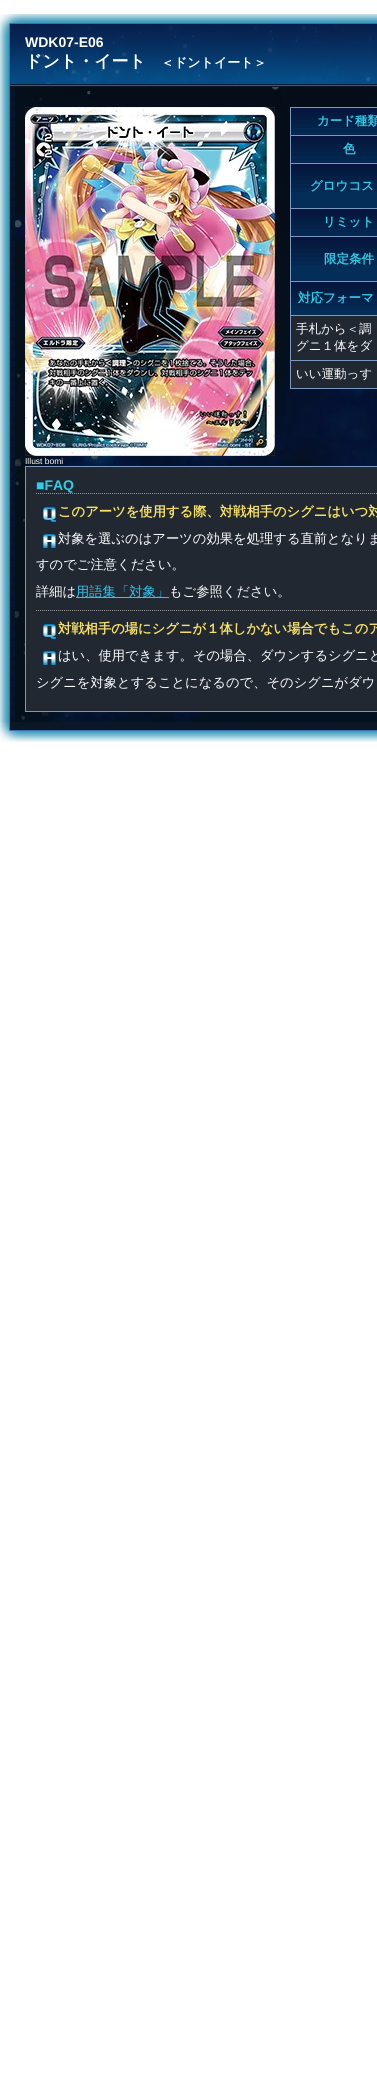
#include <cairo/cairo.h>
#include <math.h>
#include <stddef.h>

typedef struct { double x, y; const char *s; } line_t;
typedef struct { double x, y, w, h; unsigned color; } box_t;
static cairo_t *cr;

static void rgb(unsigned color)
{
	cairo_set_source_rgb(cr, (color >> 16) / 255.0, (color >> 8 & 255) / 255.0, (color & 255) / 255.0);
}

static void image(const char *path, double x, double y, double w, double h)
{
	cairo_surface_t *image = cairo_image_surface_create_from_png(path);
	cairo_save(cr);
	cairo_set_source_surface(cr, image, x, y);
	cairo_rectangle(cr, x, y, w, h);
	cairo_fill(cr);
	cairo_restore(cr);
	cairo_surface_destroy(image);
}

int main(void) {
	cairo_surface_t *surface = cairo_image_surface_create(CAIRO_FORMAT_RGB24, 377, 2073);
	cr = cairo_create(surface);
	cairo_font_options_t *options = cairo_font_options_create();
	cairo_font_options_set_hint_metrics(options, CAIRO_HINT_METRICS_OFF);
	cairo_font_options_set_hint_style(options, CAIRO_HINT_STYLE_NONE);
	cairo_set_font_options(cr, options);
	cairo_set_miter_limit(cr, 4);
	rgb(0xffffff);
	cairo_paint(cr);
	image("img/1.png", 0, 722, 377, 20);
	image("img/2.png", 0, 14, 377, 73);
	image("img/3.png", 0, 87, 15, 635);
	image("img/4.png", 15, 87, 362, 635);
	image("img/5.png", 291, 108, 86, 27);
	{
		static const box_t items[] = {
			{290, 107, 87, 1, 0x7a98c0},
			{290, 135, 87, 1, 0x7a98c0},
			{290, 163, 87, 1, 0x7a98c0},
			{290, 208, 87, 1, 0x7a98c0},
			{290, 236, 87, 1, 0x7a98c0},
			{290, 281, 87, 1, 0x7a98c0},
			{290, 315, 87, 1, 0x7a98c0},
			{290, 360, 87, 1, 0x7a98c0},
			{290, 388, 87, 1, 0x7a98c0},
			{290, 360, 1, 29, 0x7a98c0},
			{290, 315, 1, 46, 0x7a98c0},
			{290, 281, 1, 35, 0x7a98c0},
			{290, 236, 1, 46, 0x7a98c0},
			{290, 208, 1, 29, 0x7a98c0},
			{290, 163, 1, 46, 0x7a98c0},
			{290, 135, 1, 29, 0x7a98c0},
			{290, 107, 1, 29, 0x7a98c0},
		};
		for (size_t i = 0; i < sizeof items / sizeof *items; i++) {
			rgb(items[i].color);
			cairo_rectangle(cr, items[i].x, items[i].y, items[i].w, items[i].h);
			cairo_fill(cr);
		}
	}
	image("img/5.png", 291, 136, 86, 27);
	rgb(0x042d58);
	cairo_rectangle(cr, 291, 192, 86, 16);
	cairo_fill(cr);
	image("img/6.png", 291, 164, 86, 28);
	image("img/5.png", 291, 209, 86, 27);
	cairo_rectangle(cr, 291, 265, 86, 16);
	cairo_fill(cr);
	image("img/6.png", 291, 237, 86, 28);
	cairo_rectangle(cr, 291, 310, 86, 5);
	cairo_fill(cr);
	image("img/6.png", 291, 282, 86, 28);
	rgb(0x212832);
	cairo_rectangle(cr, 291, 316, 86, 44);
	cairo_fill(cr);
	cairo_rectangle(cr, 291, 361, 86, 27);
	cairo_fill(cr);
	image("img/7.png", 25, 107, 250, 349);
	cairo_rectangle(cr, 25.5, 466.5, 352, 245);
	cairo_fill_preserve(cr);
	rgb(0x7a98c0);
	cairo_set_line_width(cr, 1);
	cairo_stroke(cr);
	cairo_new_path(cr);
	cairo_move_to(cr, 36, 493.5);
	cairo_line_to(cr, 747, 493.5);
	rgb(0x999999);
	cairo_set_dash(cr, (double[]){1, 1}, 2, 0);
	cairo_stroke(cr);
	image("img/8.png", 42, 506, 15, 17);
	image("img/9.png", 42, 533, 15, 16);
	rgb(0x31c4ee);
	cairo_rectangle(cr, 76, 597, 93, 1);
	cairo_fill(cr);
	cairo_new_path(cr);
	cairo_move_to(cr, 36, 610.5);
	cairo_line_to(cr, 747, 610.5);
	rgb(0x999999);
	cairo_stroke(cr);
	image("img/8.png", 42, 623, 15, 17);
	image("img/9.png", 42, 650, 15, 16);
	cairo_select_font_face(cr, "Liberation Sans", CAIRO_FONT_SLANT_NORMAL, CAIRO_FONT_WEIGHT_BOLD);
	cairo_set_font_size(cr, 14);
	rgb(0xffffff);
	cairo_move_to(cr, 25, 47);
	cairo_show_text(cr, "WDK07-E06");
	cairo_select_font_face(cr, "WenQuanYi Zen Hei", CAIRO_FONT_SLANT_NORMAL, CAIRO_FONT_WEIGHT_BOLD);
	cairo_set_font_size(cr, 17);
	cairo_move_to(cr, 25, 67);
	cairo_show_text(cr, "ドント・イート");
	cairo_set_font_size(cr, 13);
	cairo_move_to(cr, 161, 67);
	cairo_show_text(cr, "＜ドントイート＞");
	cairo_set_font_size(cr, 12.5);
	rgb(0x31cce8);
	{
		static const line_t items[] = {
			{317, 125, "カード種類"},
			{343, 153, "色"},
			{310, 190, "グロウコス"},
			{323, 226, "リミット"},
			{324, 263, "限定条件"},
			{298, 302, "対応フォーマ"},
		};
		for (size_t i = 0; i < sizeof items / sizeof *items; i++) {
			cairo_move_to(cr, items[i].x, items[i].y);
			cairo_show_text(cr, items[i].s);
		}
	}
	cairo_select_font_face(cr, "WenQuanYi Zen Hei Medium", CAIRO_FONT_SLANT_NORMAL, CAIRO_FONT_WEIGHT_NORMAL);
	rgb(0xffffff);
	{
		static const line_t items[] = {
			{296, 333, "手札から＜調"},
			{296, 350, "グニ１体をダ"},
			{296, 378, "いい運動っす"},
		};
		for (size_t i = 0; i < sizeof items / sizeof *items; i++) {
			cairo_move_to(cr, items[i].x, items[i].y);
			cairo_show_text(cr, items[i].s);
		}
	}
	cairo_select_font_face(cr, "Liberation Sans", CAIRO_FONT_SLANT_NORMAL, CAIRO_FONT_WEIGHT_NORMAL);
	cairo_set_font_size(cr, 8.5);
	cairo_move_to(cr, 25, 464);
	cairo_show_text(cr, "Illust bomi");
	cairo_select_font_face(cr, "Liberation Sans", CAIRO_FONT_SLANT_NORMAL, CAIRO_FONT_WEIGHT_BOLD);
	cairo_set_font_size(cr, 14);
	rgb(0x31cce8);
	cairo_move_to(cr, 36, 490);
	cairo_show_text(cr, "■FAQ");
	cairo_select_font_face(cr, "WenQuanYi Zen Hei", CAIRO_FONT_SLANT_NORMAL, CAIRO_FONT_WEIGHT_BOLD);
	cairo_set_font_size(cr, 13.3);
	rgb(0xf8e163);
	cairo_move_to(cr, 58, 516);
	cairo_show_text(cr, "このアーツを使用する際、対戦相手のシグニはいつ対");
	cairo_select_font_face(cr, "WenQuanYi Zen Hei Medium", CAIRO_FONT_SLANT_NORMAL, CAIRO_FONT_WEIGHT_NORMAL);
	rgb(0xffffff);
	{
		static const line_t items[] = {
			{58, 543, "対象を選ぶのはアーツの効果を処理する直前となりま"},
			{36, 569, "すのでご注意ください。"},
			{36, 596, "詳細は"},
		};
		for (size_t i = 0; i < sizeof items / sizeof *items; i++) {
			cairo_move_to(cr, items[i].x, items[i].y);
			cairo_show_text(cr, items[i].s);
		}
	}
	rgb(0x31c4ee);
	cairo_move_to(cr, 76, 596);
	cairo_show_text(cr, "用語集「対象」");
	rgb(0xffffff);
	cairo_move_to(cr, 169, 596);
	cairo_show_text(cr, "もご参照ください。");
	cairo_select_font_face(cr, "WenQuanYi Zen Hei", CAIRO_FONT_SLANT_NORMAL, CAIRO_FONT_WEIGHT_BOLD);
	rgb(0xf8e163);
	cairo_move_to(cr, 58, 633);
	cairo_show_text(cr, "対戦相手の場にシグニが１体しかない場合でもこのア");
	cairo_select_font_face(cr, "WenQuanYi Zen Hei Medium", CAIRO_FONT_SLANT_NORMAL, CAIRO_FONT_WEIGHT_NORMAL);
	rgb(0xffffff);
	cairo_move_to(cr, 58, 660);
	cairo_show_text(cr, "はい、使用できます。その場合、ダウンするシグニと");
	cairo_move_to(cr, 36, 687);
	cairo_show_text(cr, "シグニを対象とすることになるので、そのシグニがダウ");
	cairo_surface_write_to_png(surface, "page.png");
	cairo_font_options_destroy(options);
	cairo_destroy(cr);
	cairo_surface_destroy(surface);
	return 0;
}
